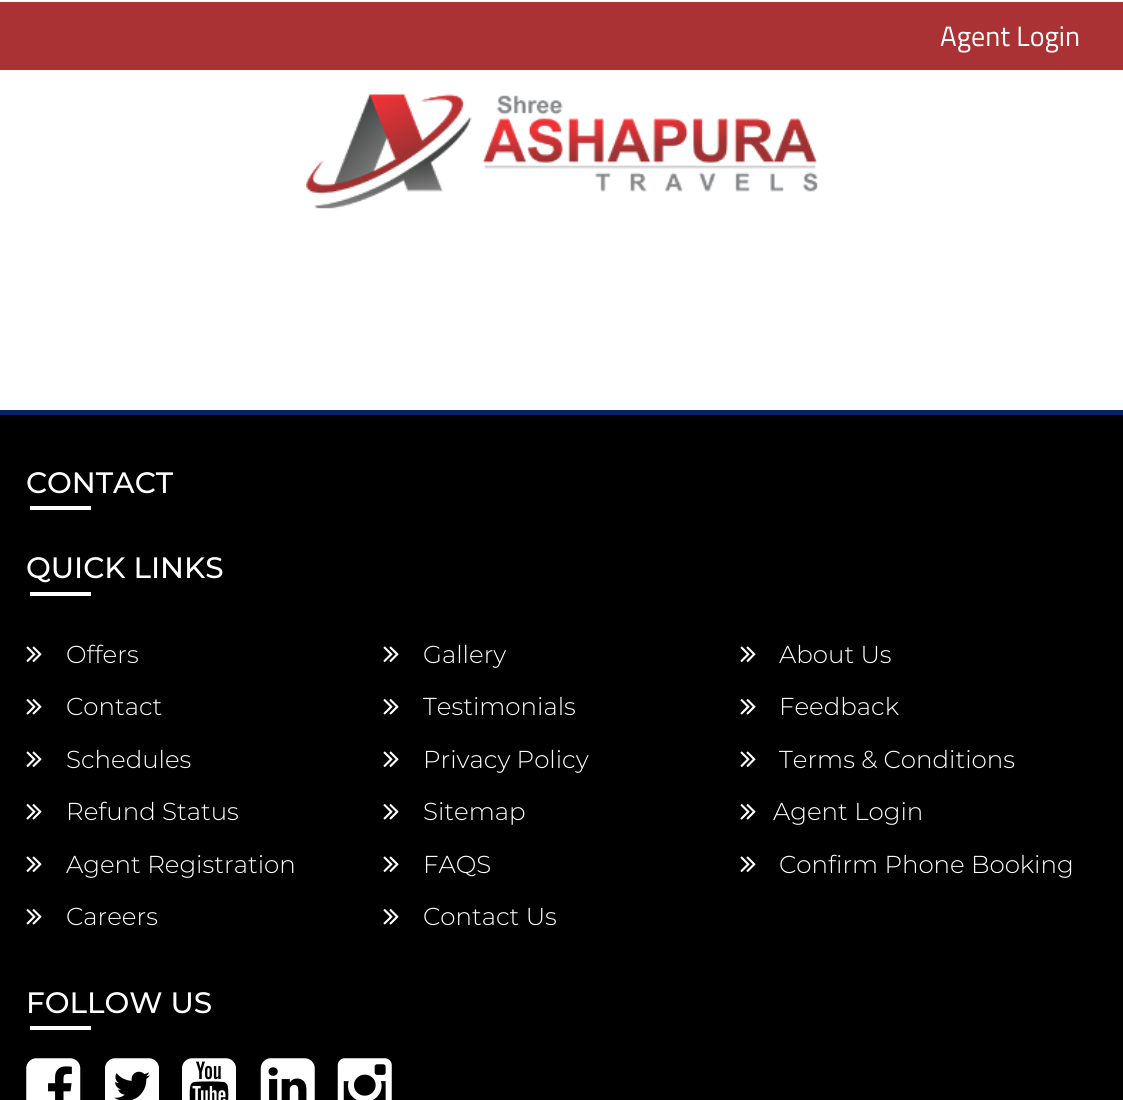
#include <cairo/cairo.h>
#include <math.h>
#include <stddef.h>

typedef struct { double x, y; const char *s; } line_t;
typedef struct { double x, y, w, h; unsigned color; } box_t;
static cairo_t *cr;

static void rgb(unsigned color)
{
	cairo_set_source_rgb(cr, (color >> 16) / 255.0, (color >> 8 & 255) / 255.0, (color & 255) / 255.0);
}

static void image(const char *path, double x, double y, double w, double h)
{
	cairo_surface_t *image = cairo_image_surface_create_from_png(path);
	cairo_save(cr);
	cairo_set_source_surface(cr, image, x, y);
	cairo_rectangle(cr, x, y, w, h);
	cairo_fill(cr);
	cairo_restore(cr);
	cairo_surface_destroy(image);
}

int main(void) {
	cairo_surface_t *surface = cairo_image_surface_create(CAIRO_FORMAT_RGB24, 1123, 1100);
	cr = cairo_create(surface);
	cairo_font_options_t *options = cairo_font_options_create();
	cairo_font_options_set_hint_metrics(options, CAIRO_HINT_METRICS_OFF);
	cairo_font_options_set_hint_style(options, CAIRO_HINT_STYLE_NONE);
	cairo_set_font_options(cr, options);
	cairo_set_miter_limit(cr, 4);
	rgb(0xffffff);
	cairo_paint(cr);
	rgb(0xab3234);
	cairo_rectangle(cr, 0, 2, 1123, 68);
	cairo_fill(cr);
	image("img/1.png", 306, 94, 512, 115);
	{
		static const box_t items[] = {
			{0, 410, 1123, 5, 0x082066},
			{0, 415, 1123, 685, 0x000000},
			{30, 506, 61, 4, 0xffffff},
			{30, 592, 61, 4, 0xffffff},
		};
		for (size_t i = 0; i < sizeof items / sizeof *items; i++) {
			rgb(items[i].color);
			cairo_rectangle(cr, items[i].x, items[i].y, items[i].w, items[i].h);
			cairo_fill(cr);
		}
	}
	image("img/2.png", 26, 646, 16, 16);
	image("img/2.png", 383, 646, 16, 16);
	image("img/2.png", 740, 646, 16, 16);
	image("img/3.png", 26, 699, 16, 16);
	image("img/3.png", 383, 699, 16, 16);
	image("img/3.png", 740, 699, 16, 16);
	image("img/2.png", 26, 751, 16, 16);
	image("img/2.png", 383, 751, 16, 16);
	image("img/2.png", 740, 751, 16, 16);
	image("img/3.png", 26, 804, 16, 16);
	image("img/3.png", 383, 804, 16, 16);
	image("img/3.png", 740, 804, 16, 16);
	image("img/2.png", 26, 856, 16, 16);
	image("img/2.png", 383, 856, 16, 16);
	image("img/2.png", 740, 856, 16, 16);
	image("img/3.png", 26, 909, 16, 16);
	image("img/3.png", 383, 909, 16, 16);
	cairo_rectangle(cr, 30, 1026, 61, 4);
	cairo_fill(cr);
	image("img/4.png", 26, 1058, 55, 42);
	image("img/5.png", 105, 1058, 54, 42);
	image("img/6.png", 182, 1058, 54, 42);
	image("img/7.png", 260, 1058, 55, 42);
	image("img/8.png", 337, 1058, 55, 42);
	cairo_select_font_face(cr, "Titillium Web", CAIRO_FONT_SLANT_NORMAL, CAIRO_FONT_WEIGHT_NORMAL);
	cairo_set_font_size(cr, 28);
	cairo_move_to(cr, 940, 46);
	cairo_show_text(cr, "Agent Login");
	cairo_select_font_face(cr, "Montserrat Medium", CAIRO_FONT_SLANT_NORMAL, CAIRO_FONT_WEIGHT_NORMAL);
	cairo_set_font_size(cr, 29.5);
	cairo_move_to(cr, 26, 493);
	cairo_show_text(cr, "CONTACT");
	cairo_move_to(cr, 26, 578);
	cairo_show_text(cr, "QUICK LINKS");
	cairo_select_font_face(cr, "Montserrat Light", CAIRO_FONT_SLANT_NORMAL, CAIRO_FONT_WEIGHT_NORMAL);
	cairo_set_font_size(cr, 24.5);
	{
		static const line_t items[] = {
			{66, 663, "Offers"},
			{423, 663, "Gallery"},
			{779, 663, "About Us"},
			{66, 715, "Contact"},
			{423, 715, "Testimonials"},
			{779, 715, "Feedback"},
			{66, 768, "Schedules"},
			{423, 768, "Privacy Policy"},
			{779, 768, "Terms & Conditions"},
			{66, 820, "Refund Status"},
			{423, 820, "Sitemap"},
			{773, 820, "Agent Login"},
			{66, 873, "Agent Registration"},
			{423, 873, "FAQS"},
			{779, 873, "Confirm Phone Booking"},
			{66, 925, "Careers"},
			{423, 925, "Contact Us"},
		};
		for (size_t i = 0; i < sizeof items / sizeof *items; i++) {
			cairo_move_to(cr, items[i].x, items[i].y);
			cairo_show_text(cr, items[i].s);
		}
	}
	cairo_select_font_face(cr, "Montserrat Medium", CAIRO_FONT_SLANT_NORMAL, CAIRO_FONT_WEIGHT_NORMAL);
	cairo_set_font_size(cr, 29.5);
	cairo_move_to(cr, 26, 1013);
	cairo_show_text(cr, "FOLLOW US");
	cairo_surface_write_to_png(surface, "page.png");
	cairo_font_options_destroy(options);
	cairo_destroy(cr);
	cairo_surface_destroy(surface);
	return 0;
}
